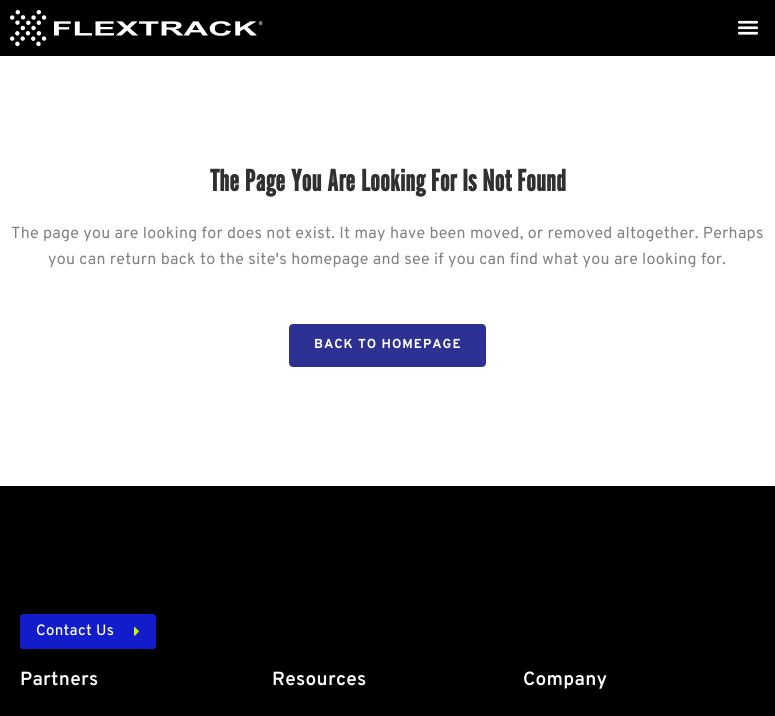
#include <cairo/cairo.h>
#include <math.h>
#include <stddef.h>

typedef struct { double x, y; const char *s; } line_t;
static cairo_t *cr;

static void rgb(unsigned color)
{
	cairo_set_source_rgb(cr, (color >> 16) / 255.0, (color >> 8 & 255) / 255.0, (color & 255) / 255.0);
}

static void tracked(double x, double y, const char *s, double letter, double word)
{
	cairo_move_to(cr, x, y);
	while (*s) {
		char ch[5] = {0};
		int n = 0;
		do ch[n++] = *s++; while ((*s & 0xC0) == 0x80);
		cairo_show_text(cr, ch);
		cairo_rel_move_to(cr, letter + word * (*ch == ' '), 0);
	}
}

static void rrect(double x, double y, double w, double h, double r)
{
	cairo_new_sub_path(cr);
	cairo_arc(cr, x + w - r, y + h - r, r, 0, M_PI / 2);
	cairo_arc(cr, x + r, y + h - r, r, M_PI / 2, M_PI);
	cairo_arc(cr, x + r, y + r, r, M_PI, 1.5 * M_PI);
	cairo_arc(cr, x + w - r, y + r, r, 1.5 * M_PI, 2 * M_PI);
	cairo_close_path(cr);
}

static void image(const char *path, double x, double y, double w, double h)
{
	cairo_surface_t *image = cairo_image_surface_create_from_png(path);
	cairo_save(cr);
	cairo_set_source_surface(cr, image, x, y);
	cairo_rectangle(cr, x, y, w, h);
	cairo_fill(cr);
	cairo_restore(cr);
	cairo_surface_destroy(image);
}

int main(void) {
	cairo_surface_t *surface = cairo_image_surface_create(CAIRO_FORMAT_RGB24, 775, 716);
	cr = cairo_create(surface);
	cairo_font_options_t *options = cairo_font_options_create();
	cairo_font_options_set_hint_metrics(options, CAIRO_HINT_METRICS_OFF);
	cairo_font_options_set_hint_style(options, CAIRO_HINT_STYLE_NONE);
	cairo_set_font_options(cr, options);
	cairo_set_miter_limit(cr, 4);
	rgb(0xffffff);
	cairo_paint(cr);
	rgb(0x000000);
	cairo_rectangle(cr, 0, 0, 775, 56);
	cairo_fill(cr);
	image("img/1.png", 10, 10, 253, 36);
	image("img/2.png", 737, 20, 22, 15);
	rgb(0x2d3193);
	rrect(290, 325, 195, 41, 3);
	cairo_fill_preserve(cr);
	cairo_stroke(cr);
	rgb(0x000000);
	cairo_rectangle(cr, 0, 486, 775, 230);
	cairo_fill(cr);
	rgb(0x121ccb);
	rrect(20, 614, 136, 35, 3);
	cairo_fill(cr);
	image("img/3.png", 134, 627, 5, 9);
	cairo_select_font_face(cr, "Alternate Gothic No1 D", CAIRO_FONT_SLANT_NORMAL, CAIRO_FONT_WEIGHT_BOLD);
	cairo_set_font_size(cr, 32);
	rgb(0x303030);
	tracked(210, 191, "The Page You Are Looking For Is Not Found", 0.1, 0);
	cairo_select_font_face(cr, "Overpass", CAIRO_FONT_SLANT_NORMAL, CAIRO_FONT_WEIGHT_NORMAL);
	cairo_set_font_size(cr, 16);
	rgb(0x818181);
	tracked(11, 238, "The page you are looking for does not exist. It may have been moved, or removed altogether. Perhaps", 0.3, 0);
	tracked(48, 264, "you can return back to the site's homepage and see if you can find what you are looking for.", 0.3, 0);
	cairo_select_font_face(cr, "Overpass", CAIRO_FONT_SLANT_NORMAL, CAIRO_FONT_WEIGHT_BOLD);
	cairo_set_font_size(cr, 13);
	rgb(0xffffff);
	tracked(314, 348, "BACK TO HOMEPAGE", 1, 0);
	cairo_select_font_face(cr, "Overpass Medium", CAIRO_FONT_SLANT_NORMAL, CAIRO_FONT_WEIGHT_NORMAL);
	cairo_set_font_size(cr, 15);
	tracked(36, 635, "Contact Us", 0.3, 0);
	cairo_select_font_face(cr, "Overpass SemiBold", CAIRO_FONT_SLANT_NORMAL, CAIRO_FONT_WEIGHT_NORMAL);
	cairo_set_font_size(cr, 19);
	{
		static const line_t items[] = {
			{20, 685, "Partners"},
			{272, 685, "Resources"},
			{523, 685, "Company"},
		};
		for (size_t i = 0; i < sizeof items / sizeof *items; i++) {
			tracked(items[i].x, items[i].y, items[i].s, 0.3, 0);
		}
	}
	cairo_surface_write_to_png(surface, "page.png");
	cairo_font_options_destroy(options);
	cairo_destroy(cr);
	cairo_surface_destroy(surface);
	return 0;
}
